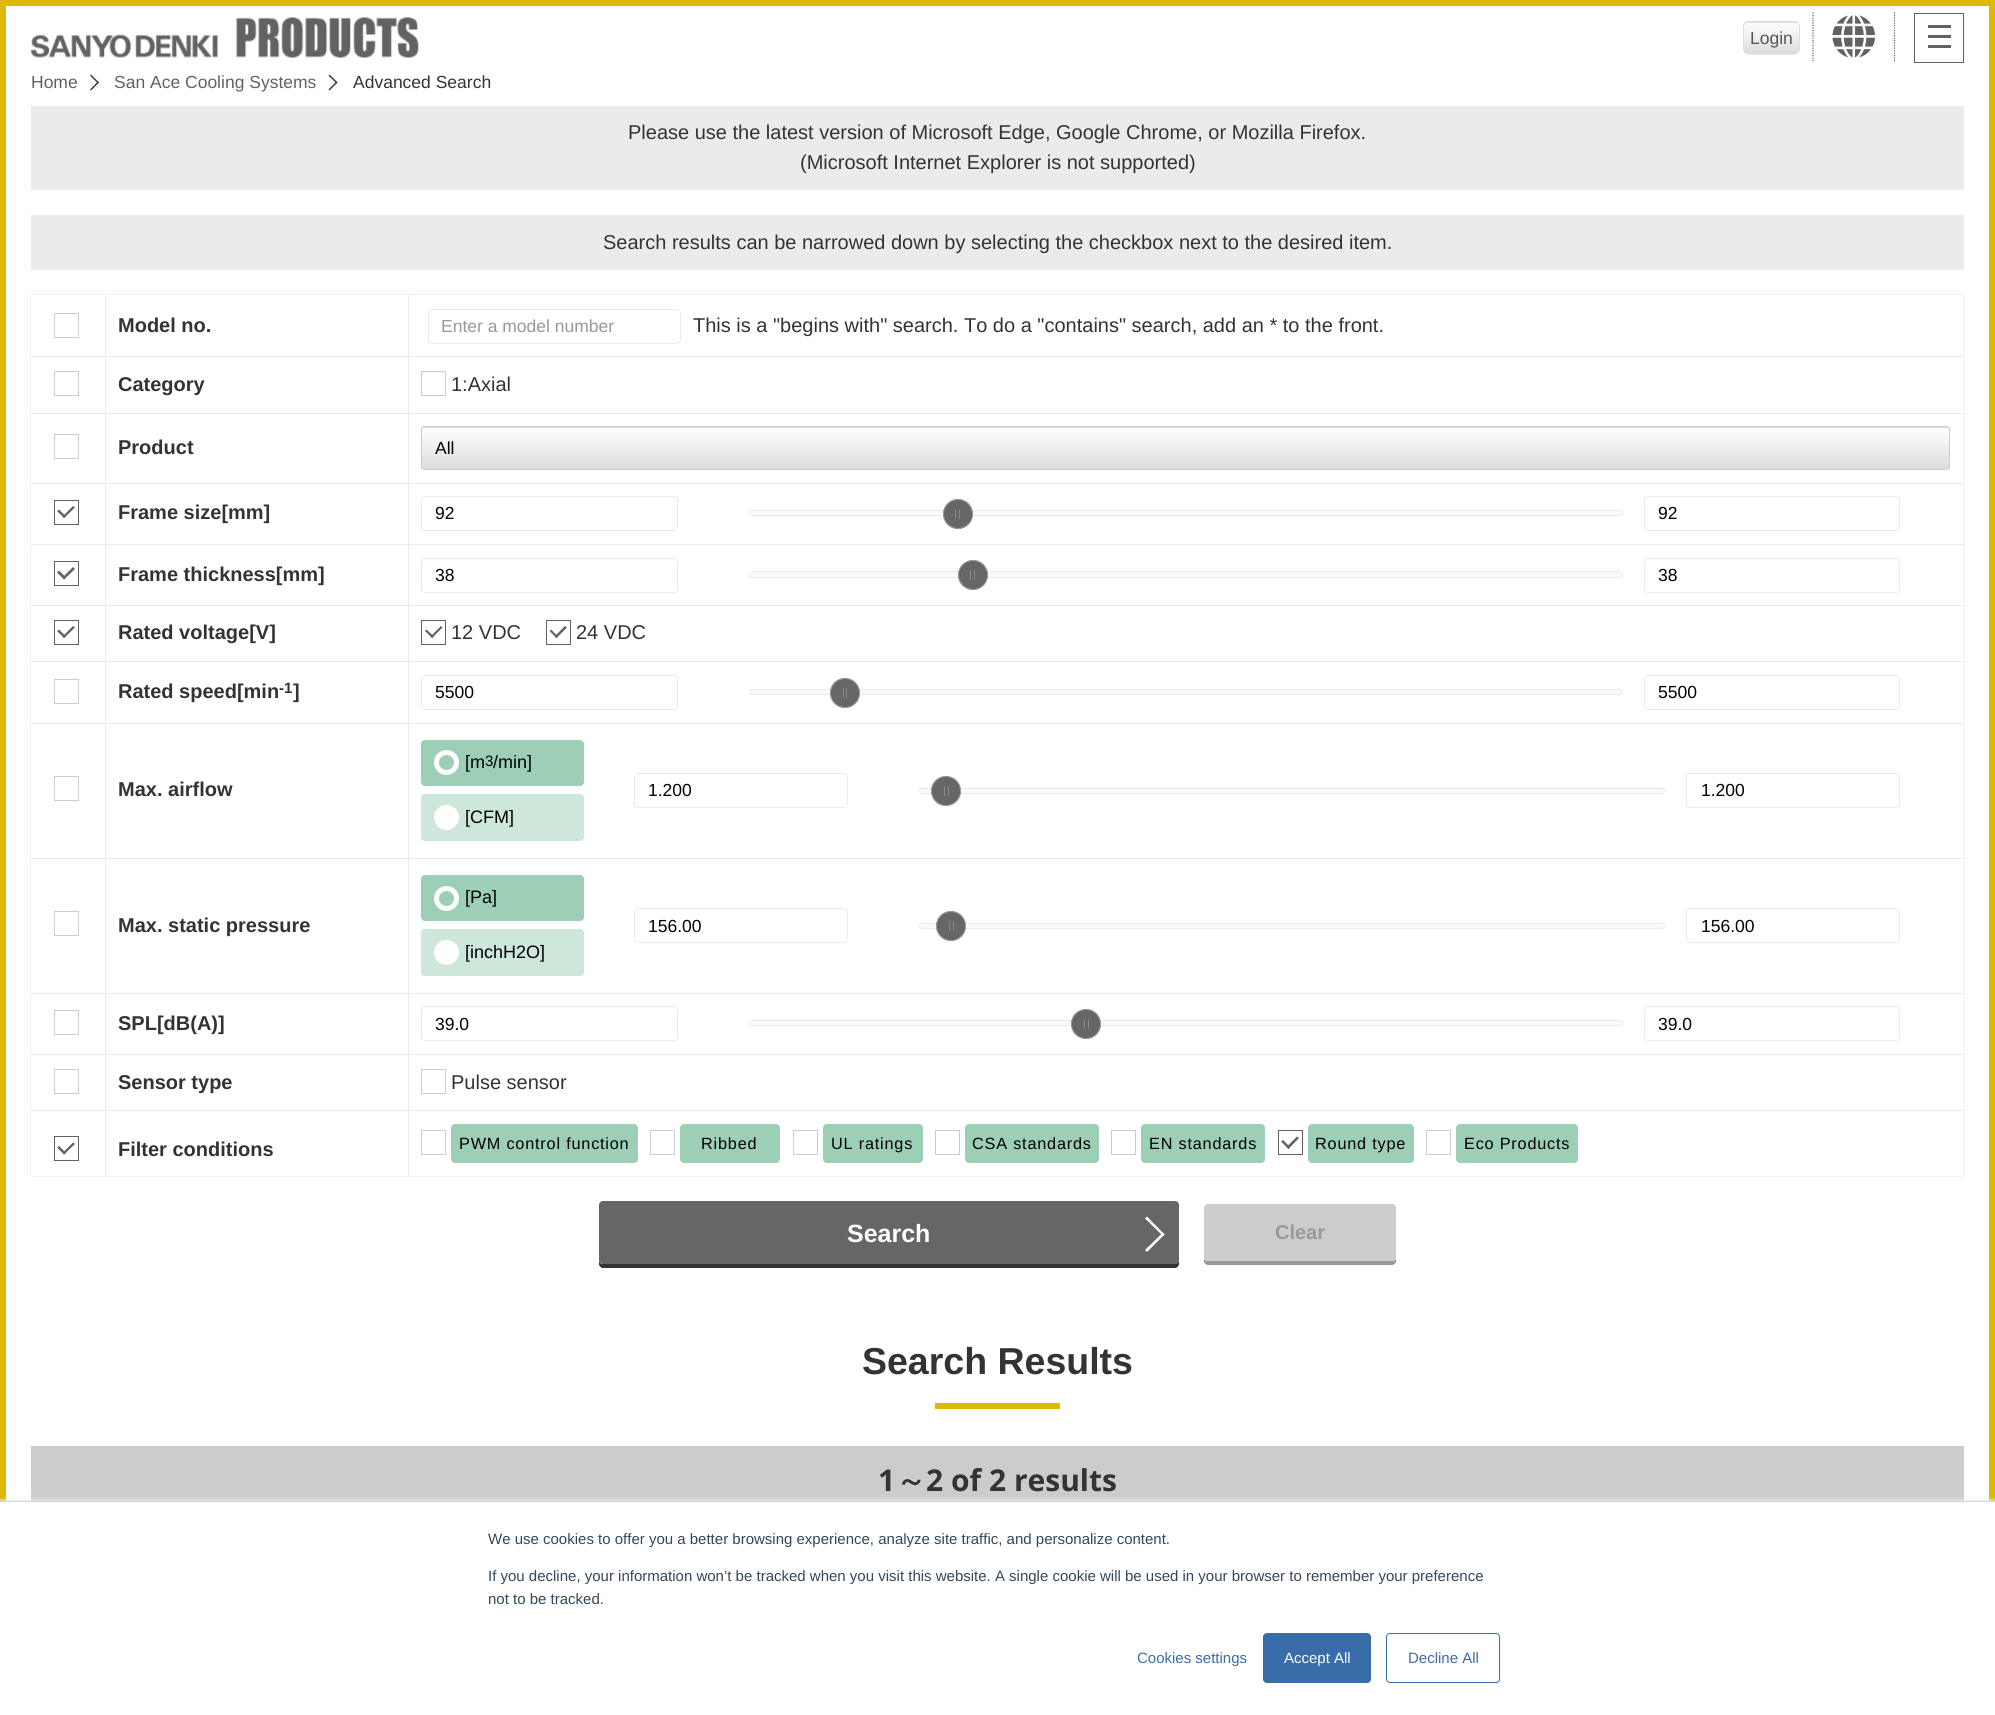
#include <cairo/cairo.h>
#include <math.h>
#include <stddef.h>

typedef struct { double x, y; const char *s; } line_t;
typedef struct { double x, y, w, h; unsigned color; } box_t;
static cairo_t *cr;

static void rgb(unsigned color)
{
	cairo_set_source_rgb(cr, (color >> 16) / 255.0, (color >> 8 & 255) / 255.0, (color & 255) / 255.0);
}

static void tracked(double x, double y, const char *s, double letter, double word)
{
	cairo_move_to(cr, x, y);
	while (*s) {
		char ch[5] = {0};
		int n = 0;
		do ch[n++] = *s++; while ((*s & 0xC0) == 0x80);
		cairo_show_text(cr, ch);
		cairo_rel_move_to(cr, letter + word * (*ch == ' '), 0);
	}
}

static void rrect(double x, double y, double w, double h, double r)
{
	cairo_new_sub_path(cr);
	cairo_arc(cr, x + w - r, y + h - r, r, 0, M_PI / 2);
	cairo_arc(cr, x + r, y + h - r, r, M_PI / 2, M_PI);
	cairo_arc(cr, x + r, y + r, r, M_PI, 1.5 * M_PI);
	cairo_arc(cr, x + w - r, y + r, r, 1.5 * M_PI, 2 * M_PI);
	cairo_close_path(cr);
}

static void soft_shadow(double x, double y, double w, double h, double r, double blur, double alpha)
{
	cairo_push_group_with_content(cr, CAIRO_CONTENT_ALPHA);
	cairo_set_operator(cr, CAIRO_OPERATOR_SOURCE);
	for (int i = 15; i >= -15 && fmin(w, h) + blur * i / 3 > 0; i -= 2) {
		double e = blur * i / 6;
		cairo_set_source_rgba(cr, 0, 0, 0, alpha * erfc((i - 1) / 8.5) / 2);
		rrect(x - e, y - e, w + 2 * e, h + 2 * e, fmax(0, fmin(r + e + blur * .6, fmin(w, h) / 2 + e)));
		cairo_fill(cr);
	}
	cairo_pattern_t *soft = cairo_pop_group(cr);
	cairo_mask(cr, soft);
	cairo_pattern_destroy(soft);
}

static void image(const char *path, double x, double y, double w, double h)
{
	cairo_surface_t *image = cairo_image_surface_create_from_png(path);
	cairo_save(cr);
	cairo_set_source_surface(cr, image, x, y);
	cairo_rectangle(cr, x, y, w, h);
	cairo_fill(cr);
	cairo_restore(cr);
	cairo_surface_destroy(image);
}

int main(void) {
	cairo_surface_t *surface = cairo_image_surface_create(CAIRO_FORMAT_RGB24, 1995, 1715);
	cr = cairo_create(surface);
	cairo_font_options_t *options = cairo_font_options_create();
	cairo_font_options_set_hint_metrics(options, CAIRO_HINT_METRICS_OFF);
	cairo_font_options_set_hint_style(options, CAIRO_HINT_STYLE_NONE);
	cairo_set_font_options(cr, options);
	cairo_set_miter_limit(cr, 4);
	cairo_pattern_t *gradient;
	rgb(0xffffff);
	cairo_paint(cr);
	{
		static const box_t items[] = {
			{1989, 106, 6, 1395, 0xddb900},
			{0, 106, 6, 1395, 0xddb900},
			{0, 0, 1995, 6, 0xddb900},
			{1989, 0, 6, 106, 0xddb900},
			{0, 0, 6, 106, 0xddb900},
		};
		for (size_t i = 0; i < sizeof items / sizeof *items; i++) {
			rgb(items[i].color);
			cairo_rectangle(cr, items[i].x, items[i].y, items[i].w, items[i].h);
			cairo_fill(cr);
		}
	}
	image("img/1.png", 31, 34, 188, 24);
	image("img/2.png", 236, 17, 183, 41);
	rgb(0xe6e6e6);
	cairo_new_path(cr);
	cairo_move_to(cr, 1743, 50);
	cairo_curve_to(cr, 1744, 53, 1746, 55, 1749, 55);
	cairo_line_to(cr, 1794, 55);
	cairo_curve_to(cr, 1797, 55, 1800, 52, 1800, 49);
	cairo_line_to(cr, 1800, 48);
	cairo_curve_to(cr, 1800, 51, 1797, 54, 1794, 54);
	cairo_line_to(cr, 1749, 54);
	cairo_curve_to(cr, 1746, 54, 1744, 52, 1743, 50);
	cairo_close_path(cr);
	cairo_fill(cr);
	cairo_save(cr);
	rrect(1743, 21, 57, 33, 6);
	cairo_clip(cr);
	gradient = cairo_pattern_create_linear(1771, -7.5, 1771, 23);
	cairo_pattern_add_color_stop_rgba(gradient, 0, 1, 1, 1, 1);
	cairo_pattern_add_color_stop_rgba(gradient, 1, 0.867, 0.867, 0.867, 1);
	cairo_set_source(cr, gradient);
	cairo_pattern_destroy(gradient);
	cairo_rectangle(cr, 1743, 21, 57, 2);
	cairo_fill(cr);
	gradient = cairo_pattern_create_linear(1771, 22, 1771, 53);
	cairo_pattern_add_color_stop_rgba(gradient, 0, 1, 1, 1, 1);
	cairo_pattern_add_color_stop_rgba(gradient, 1, 0.867, 0.867, 0.867, 1);
	cairo_set_source(cr, gradient);
	cairo_pattern_destroy(gradient);
	cairo_rectangle(cr, 1743, 23, 57, 30);
	cairo_fill(cr);
	cairo_restore(cr);
	rrect(1743.5, 21.5, 56, 32, 5.5);
	rgb(0xdddddd);
	cairo_set_line_width(cr, 1);
	cairo_stroke(cr);
	cairo_new_path(cr);
	cairo_move_to(cr, 1813, 12.5);
	cairo_line_to(cr, 1813, 62.5);
	rgb(0x636262);
	cairo_set_line_width(cr, 1.2);
	cairo_set_dash(cr, (double[]){1.25, 1.25}, 2, 0);
	cairo_stroke(cr);
	image("img/3.png", 1832, 15, 43, 43);
	cairo_new_path(cr);
	cairo_move_to(cr, 1894.5, 12.5);
	cairo_line_to(cr, 1894.5, 62.5);
	cairo_stroke(cr);
	cairo_rectangle(cr, 1914.5, 13.5, 49, 49);
	cairo_set_line_width(cr, 1);
	cairo_set_dash(cr, NULL, 0, 0);
	cairo_stroke(cr);
	{
		static const box_t items[] = {
			{1928, 35, 23, 3, 0x636262},
			{1928, 25, 23, 3, 0x636262},
			{1928, 45, 23, 3, 0x636262},
			{31, 106, 1933, 1, 0xe8e8e8},
		};
		for (size_t i = 0; i < sizeof items / sizeof *items; i++) {
			rgb(items[i].color);
			cairo_rectangle(cr, items[i].x, items[i].y, items[i].w, items[i].h);
			cairo_fill(cr);
		}
	}
	rgb(0x333333);
	cairo_new_path(cr);
	cairo_move_to(cr, 91, 74.5);
	cairo_line_to(cr, 99, 82.5);
	cairo_line_to(cr, 98, 83.5);
	cairo_line_to(cr, 90, 75.5);
	cairo_close_path(cr);
	cairo_fill(cr);
	cairo_new_path(cr);
	cairo_move_to(cr, 98, 81.5);
	cairo_line_to(cr, 99, 82.5);
	cairo_line_to(cr, 91, 90.5);
	cairo_line_to(cr, 90, 89.5);
	cairo_close_path(cr);
	cairo_fill(cr);
	cairo_new_path(cr);
	cairo_move_to(cr, 329.5, 74.5);
	cairo_line_to(cr, 337.5, 82.5);
	cairo_line_to(cr, 336.5, 83.5);
	cairo_line_to(cr, 328.5, 75.5);
	cairo_close_path(cr);
	cairo_fill(cr);
	cairo_new_path(cr);
	cairo_move_to(cr, 336.5, 81.5);
	cairo_line_to(cr, 337.5, 82.5);
	cairo_line_to(cr, 329.5, 90.5);
	cairo_line_to(cr, 328.5, 89.5);
	cairo_close_path(cr);
	cairo_fill(cr);
	rgb(0xebebeb);
	cairo_rectangle(cr, 31, 107, 1933, 83);
	cairo_fill(cr);
	cairo_rectangle(cr, 31, 215, 1933, 55);
	cairo_fill(cr);
	cairo_save(cr);
	cairo_set_fill_rule(cr, CAIRO_FILL_RULE_EVEN_ODD);
	cairo_new_path(cr);
	cairo_move_to(cr, 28, 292);
	cairo_line_to(cr, 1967, 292);
	cairo_line_to(cr, 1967, 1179);
	cairo_line_to(cr, 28, 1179);
	cairo_close_path(cr);
	cairo_move_to(cr, 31, 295);
	cairo_line_to(cr, 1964, 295);
	cairo_line_to(cr, 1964, 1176);
	cairo_line_to(cr, 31, 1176);
	cairo_close_path(cr);
	cairo_clip(cr);
	rgb(0xcccccc);
	soft_shadow(31, 295, 1933, 881, 0, 0.5, 1);
	cairo_restore(cr);
	{
		static const box_t items[] = {
			{31, 295, 1933, 1, 0xffffff},
			{1963, 295, 1, 881, 0xffffff},
			{31, 295, 1, 881, 0xffffff},
		};
		for (size_t i = 0; i < sizeof items / sizeof *items; i++) {
			rgb(items[i].color);
			cairo_rectangle(cr, items[i].x, items[i].y, items[i].w, items[i].h);
			cairo_fill(cr);
		}
	}
	cairo_rectangle(cr, 54.5, 313.5, 24, 24);
	rgb(0xcccccc);
	cairo_stroke(cr);
	{
		static const box_t items[] = {
			{408, 356, 1556, 1, 0xebebeb},
			{408, 413, 1556, 1, 0xebebeb},
			{408, 483, 1556, 1, 0xebebeb},
			{408, 544, 1556, 1, 0xebebeb},
			{408, 605, 1556, 1, 0xebebeb},
			{408, 661, 1556, 1, 0xebebeb},
			{408, 723, 1556, 1, 0xebebeb},
			{408, 858, 1556, 1, 0xebebeb},
			{408, 993, 1556, 1, 0xebebeb},
			{408, 1054, 1556, 1, 0xebebeb},
			{408, 1110, 1556, 1, 0xebebeb},
			{408, 1110, 1, 66, 0xebebeb},
			{105, 1110, 304, 1, 0xebebeb},
			{408, 1054, 1, 57, 0xebebeb},
			{105, 1054, 304, 1, 0xebebeb},
			{408, 993, 1, 62, 0xebebeb},
			{105, 993, 304, 1, 0xebebeb},
			{408, 858, 1, 136, 0xebebeb},
			{105, 858, 304, 1, 0xebebeb},
			{408, 723, 1, 136, 0xebebeb},
			{105, 723, 304, 1, 0xebebeb},
			{408, 661, 1, 63, 0xebebeb},
			{105, 661, 304, 1, 0xebebeb},
			{408, 605, 1, 58, 0xebebeb},
			{105, 605, 304, 1, 0xebebeb},
			{408, 544, 1, 62, 0xebebeb},
			{105, 544, 304, 1, 0xebebeb},
			{408, 483, 1, 62, 0xebebeb},
			{105, 483, 304, 1, 0xebebeb},
			{408, 413, 1, 71, 0xebebeb},
			{105, 413, 304, 1, 0xebebeb},
			{408, 356, 1, 58, 0xebebeb},
			{105, 356, 304, 1, 0xebebeb},
			{105, 1110, 1, 66, 0xebebeb},
			{31, 1110, 75, 1, 0xebebeb},
			{105, 1054, 1, 57, 0xebebeb},
			{31, 1054, 75, 1, 0xebebeb},
			{105, 993, 1, 62, 0xebebeb},
			{31, 993, 75, 1, 0xebebeb},
			{105, 858, 1, 136, 0xebebeb},
			{31, 858, 75, 1, 0xebebeb},
			{105, 723, 1, 136, 0xebebeb},
			{31, 723, 75, 1, 0xebebeb},
			{105, 661, 1, 63, 0xebebeb},
			{31, 661, 75, 1, 0xebebeb},
			{105, 605, 1, 58, 0xebebeb},
			{31, 605, 75, 1, 0xebebeb},
			{105, 544, 1, 62, 0xebebeb},
			{31, 544, 75, 1, 0xebebeb},
			{105, 483, 1, 62, 0xebebeb},
			{31, 483, 75, 1, 0xebebeb},
			{105, 413, 1, 71, 0xebebeb},
			{31, 413, 75, 1, 0xebebeb},
			{105, 356, 1, 58, 0xebebeb},
			{31, 356, 75, 1, 0xebebeb},
			{105, 295, 1, 63, 0xebebeb},
			{408, 295, 1, 63, 0xebebeb},
		};
		for (size_t i = 0; i < sizeof items / sizeof *items; i++) {
			rgb(items[i].color);
			cairo_rectangle(cr, items[i].x, items[i].y, items[i].w, items[i].h);
			cairo_fill(cr);
		}
	}
	rrect(428.5, 309.5, 252, 34, 3.5);
	cairo_stroke(cr);
	cairo_rectangle(cr, 54.5, 371.5, 24, 24);
	rgb(0xcccccc);
	cairo_stroke(cr);
	cairo_rectangle(cr, 421.5, 371.5, 24, 24);
	cairo_stroke(cr);
	cairo_rectangle(cr, 54.5, 434.5, 24, 24);
	cairo_stroke(cr);
	cairo_save(cr);
	rrect(421, 426, 1529, 44, 4);
	cairo_clip(cr);
	gradient = cairo_pattern_create_linear(1186, 386, 1186, 428);
	cairo_pattern_add_color_stop_rgba(gradient, 0, 1, 1, 1, 1);
	cairo_pattern_add_color_stop_rgba(gradient, 1, 0.867, 0.867, 0.867, 1);
	cairo_set_source(cr, gradient);
	cairo_pattern_destroy(gradient);
	cairo_rectangle(cr, 421, 426, 1529, 2);
	cairo_fill(cr);
	gradient = cairo_pattern_create_linear(1186, 427, 1186, 469);
	cairo_pattern_add_color_stop_rgba(gradient, 0, 1, 1, 1, 1);
	cairo_pattern_add_color_stop_rgba(gradient, 1, 0.867, 0.867, 0.867, 1);
	cairo_set_source(cr, gradient);
	cairo_pattern_destroy(gradient);
	cairo_rectangle(cr, 421, 428, 1529, 41);
	cairo_fill(cr);
	cairo_restore(cr);
	rrect(421.5, 426.5, 1528, 43, 3.5);
	cairo_stroke(cr);
	cairo_rectangle(cr, 54.5, 500.5, 24, 24);
	rgb(0x636262);
	cairo_stroke(cr);
	cairo_new_path(cr);
	cairo_move_to(cr, 73, 506);
	cairo_line_to(cr, 75, 507.5);
	cairo_line_to(cr, 64, 518);
	cairo_line_to(cr, 62.5, 516.5);
	cairo_close_path(cr);
	cairo_fill(cr);
	cairo_new_path(cr);
	cairo_move_to(cr, 59, 509.5);
	cairo_line_to(cr, 66, 516.5);
	cairo_line_to(cr, 64, 518);
	cairo_line_to(cr, 57, 511);
	cairo_close_path(cr);
	cairo_fill(cr);
	rrect(421.5, 496.5, 256, 34, 3.5);
	rgb(0xebebeb);
	cairo_stroke(cr);
	rgb(0xfafafa);
	rrect(749.5, 510.5, 873, 5, 2.5);
	cairo_fill_preserve(cr);
	rgb(0xebebeb);
	cairo_stroke(cr);
	cairo_arc(cr, 958, 514, 14.5, 0, 2 * M_PI);
	rgb(0x999999);
	cairo_stroke(cr);
	rgb(0x666666);
	cairo_arc(cr, 958, 514, 14.5, 0, 2 * M_PI);
	cairo_fill_preserve(cr);
	rgb(0x999999);
	cairo_stroke(cr);
	rgb(0x888888);
	cairo_rectangle(cr, 955, 509, 1, 10);
	cairo_fill(cr);
	cairo_rectangle(cr, 959, 509, 1, 10);
	cairo_fill(cr);
	rrect(1644.5, 496.5, 255, 34, 3.5);
	rgb(0xebebeb);
	cairo_stroke(cr);
	cairo_rectangle(cr, 54.5, 561.5, 24, 24);
	rgb(0x636262);
	cairo_stroke(cr);
	cairo_new_path(cr);
	cairo_move_to(cr, 73, 567);
	cairo_line_to(cr, 75, 569);
	cairo_line_to(cr, 64, 579.5);
	cairo_line_to(cr, 62.5, 577.5);
	cairo_close_path(cr);
	cairo_fill(cr);
	cairo_new_path(cr);
	cairo_move_to(cr, 59, 570.5);
	cairo_line_to(cr, 66, 577.5);
	cairo_line_to(cr, 64, 579.5);
	cairo_line_to(cr, 57, 572.5);
	cairo_close_path(cr);
	cairo_fill(cr);
	rrect(421.5, 558.5, 256, 34, 3.5);
	rgb(0xebebeb);
	cairo_stroke(cr);
	rgb(0xfafafa);
	rrect(749.5, 571.5, 873, 6, 3);
	cairo_fill_preserve(cr);
	rgb(0xebebeb);
	cairo_stroke(cr);
	cairo_arc(cr, 973, 575, 14.5, 0, 2 * M_PI);
	rgb(0x999999);
	cairo_stroke(cr);
	rgb(0x666666);
	cairo_arc(cr, 973, 575, 14.5, 0, 2 * M_PI);
	cairo_fill_preserve(cr);
	rgb(0x999999);
	cairo_stroke(cr);
	rgb(0x888888);
	cairo_rectangle(cr, 970, 570, 1, 10);
	cairo_fill(cr);
	cairo_rectangle(cr, 974, 570, 1, 10);
	cairo_fill(cr);
	rrect(1644.5, 558.5, 255, 34, 3.5);
	rgb(0xebebeb);
	cairo_stroke(cr);
	cairo_rectangle(cr, 54.5, 620.5, 24, 24);
	rgb(0x636262);
	cairo_stroke(cr);
	cairo_new_path(cr);
	cairo_move_to(cr, 73, 626);
	cairo_line_to(cr, 75, 627.5);
	cairo_line_to(cr, 64, 638);
	cairo_line_to(cr, 62.5, 636.5);
	cairo_close_path(cr);
	cairo_fill(cr);
	cairo_new_path(cr);
	cairo_move_to(cr, 59, 629.5);
	cairo_line_to(cr, 66, 636.5);
	cairo_line_to(cr, 64, 638);
	cairo_line_to(cr, 57, 631);
	cairo_close_path(cr);
	cairo_fill(cr);
	cairo_rectangle(cr, 421.5, 620.5, 24, 24);
	cairo_stroke(cr);
	cairo_new_path(cr);
	cairo_move_to(cr, 441, 626);
	cairo_line_to(cr, 442.5, 627.5);
	cairo_line_to(cr, 432, 638);
	cairo_line_to(cr, 430.5, 636.5);
	cairo_close_path(cr);
	cairo_fill(cr);
	cairo_new_path(cr);
	cairo_move_to(cr, 426.5, 629.5);
	cairo_line_to(cr, 434, 636.5);
	cairo_line_to(cr, 432, 638);
	cairo_line_to(cr, 425, 631);
	cairo_close_path(cr);
	cairo_fill(cr);
	cairo_rectangle(cr, 546.5, 620.5, 24, 24);
	cairo_stroke(cr);
	cairo_new_path(cr);
	cairo_move_to(cr, 565, 626);
	cairo_line_to(cr, 567, 627.5);
	cairo_line_to(cr, 556.5, 638);
	cairo_line_to(cr, 554.5, 636.5);
	cairo_close_path(cr);
	cairo_fill(cr);
	cairo_new_path(cr);
	cairo_move_to(cr, 551, 629.5);
	cairo_line_to(cr, 558, 636.5);
	cairo_line_to(cr, 556.5, 638);
	cairo_line_to(cr, 549.5, 631);
	cairo_close_path(cr);
	cairo_fill(cr);
	cairo_rectangle(cr, 54.5, 679.5, 24, 24);
	rgb(0xcccccc);
	cairo_stroke(cr);
	rrect(421.5, 675.5, 256, 34, 3.5);
	rgb(0xebebeb);
	cairo_stroke(cr);
	rgb(0xfafafa);
	rrect(749.5, 689.5, 873, 5, 2.5);
	cairo_fill_preserve(cr);
	rgb(0xebebeb);
	cairo_stroke(cr);
	cairo_arc(cr, 845, 693, 14.5, 0, 2 * M_PI);
	rgb(0x999999);
	cairo_stroke(cr);
	rgb(0x666666);
	cairo_arc(cr, 845, 693, 14.5, 0, 2 * M_PI);
	cairo_fill_preserve(cr);
	rgb(0x999999);
	cairo_stroke(cr);
	rgb(0x888888);
	cairo_rectangle(cr, 843, 688, 1, 10);
	cairo_fill(cr);
	cairo_rectangle(cr, 846, 688, 1, 10);
	cairo_fill(cr);
	rrect(1644.5, 675.5, 255, 34, 3.5);
	rgb(0xebebeb);
	cairo_stroke(cr);
	cairo_rectangle(cr, 54.5, 776.5, 24, 24);
	rgb(0xcccccc);
	cairo_stroke(cr);
	rgb(0x9ccfb6);
	rrect(421, 740, 163, 46, 4);
	cairo_fill(cr);
	cairo_arc(cr, 446.5, 762.5, 10, 0, 2 * M_PI);
	rgb(0xffffff);
	cairo_set_line_width(cr, 5);
	cairo_stroke(cr);
	rgb(0xcde7da);
	rrect(421, 794, 163, 47, 4);
	cairo_fill(cr);
	rgb(0xffffff);
	cairo_arc(cr, 446.5, 817.5, 10, 0, 2 * M_PI);
	cairo_fill_preserve(cr);
	cairo_stroke(cr);
	rrect(634.5, 773.5, 213, 34, 3.5);
	rgb(0xebebeb);
	cairo_set_line_width(cr, 1);
	cairo_stroke(cr);
	rgb(0xfafafa);
	rrect(919.5, 788.5, 745, 5, 2.5);
	cairo_fill_preserve(cr);
	rgb(0xebebeb);
	cairo_stroke(cr);
	cairo_arc(cr, 946, 791, 14.5, 0, 2 * M_PI);
	rgb(0x999999);
	cairo_stroke(cr);
	rgb(0x666666);
	cairo_arc(cr, 946, 791, 14.5, 0, 2 * M_PI);
	cairo_fill_preserve(cr);
	rgb(0x999999);
	cairo_stroke(cr);
	rgb(0x888888);
	cairo_rectangle(cr, 944, 786, 1, 10);
	cairo_fill(cr);
	cairo_rectangle(cr, 948, 786, 1, 10);
	cairo_fill(cr);
	rrect(1686.5, 773.5, 213, 34, 3.5);
	rgb(0xebebeb);
	cairo_stroke(cr);
	cairo_rectangle(cr, 54.5, 911.5, 24, 24);
	rgb(0xcccccc);
	cairo_stroke(cr);
	rgb(0x9ccfb6);
	rrect(421, 875, 163, 46, 4);
	cairo_fill(cr);
	cairo_arc(cr, 446.5, 898.5, 10, 0, 2 * M_PI);
	rgb(0xffffff);
	cairo_set_line_width(cr, 5);
	cairo_stroke(cr);
	rgb(0xcde7da);
	rrect(421, 929, 163, 47, 4);
	cairo_fill(cr);
	rgb(0xffffff);
	cairo_arc(cr, 446.5, 952.5, 10, 0, 2 * M_PI);
	cairo_fill_preserve(cr);
	cairo_stroke(cr);
	rrect(634.5, 908.5, 213, 34, 3.5);
	rgb(0xebebeb);
	cairo_set_line_width(cr, 1);
	cairo_stroke(cr);
	rgb(0xfafafa);
	rrect(919.5, 923.5, 745, 5, 2.5);
	cairo_fill_preserve(cr);
	rgb(0xebebeb);
	cairo_stroke(cr);
	cairo_arc(cr, 951, 926, 14.5, 0, 2 * M_PI);
	rgb(0x999999);
	cairo_stroke(cr);
	rgb(0x666666);
	cairo_arc(cr, 951, 926, 14.5, 0, 2 * M_PI);
	cairo_fill_preserve(cr);
	rgb(0x999999);
	cairo_stroke(cr);
	rgb(0x888888);
	cairo_rectangle(cr, 949, 921, 1, 10);
	cairo_fill(cr);
	cairo_rectangle(cr, 953, 921, 1, 10);
	cairo_fill(cr);
	rrect(1686.5, 908.5, 213, 34, 3.5);
	rgb(0xebebeb);
	cairo_stroke(cr);
	cairo_rectangle(cr, 54.5, 1010.5, 24, 24);
	rgb(0xcccccc);
	cairo_stroke(cr);
	rrect(421.5, 1006.5, 256, 34, 3.5);
	rgb(0xebebeb);
	cairo_stroke(cr);
	rgb(0xfafafa);
	rrect(749.5, 1020.5, 873, 5, 2.5);
	cairo_fill_preserve(cr);
	rgb(0xebebeb);
	cairo_stroke(cr);
	cairo_arc(cr, 1086, 1024, 14.5, 0, 2 * M_PI);
	rgb(0x999999);
	cairo_stroke(cr);
	rgb(0x666666);
	cairo_arc(cr, 1086, 1024, 14.5, 0, 2 * M_PI);
	cairo_fill_preserve(cr);
	rgb(0x999999);
	cairo_stroke(cr);
	rgb(0x888888);
	cairo_rectangle(cr, 1084, 1019, 1, 10);
	cairo_fill(cr);
	cairo_rectangle(cr, 1088, 1019, 1, 10);
	cairo_fill(cr);
	rrect(1644.5, 1006.5, 255, 34, 3.5);
	rgb(0xebebeb);
	cairo_stroke(cr);
	cairo_rectangle(cr, 54.5, 1069.5, 24, 24);
	rgb(0xcccccc);
	cairo_stroke(cr);
	cairo_rectangle(cr, 421.5, 1069.5, 24, 24);
	cairo_stroke(cr);
	cairo_rectangle(cr, 54.5, 1136.5, 24, 24);
	rgb(0x636262);
	cairo_stroke(cr);
	cairo_new_path(cr);
	cairo_move_to(cr, 73, 1142.5);
	cairo_line_to(cr, 75, 1144);
	cairo_line_to(cr, 64, 1154.5);
	cairo_line_to(cr, 62.5, 1153);
	cairo_close_path(cr);
	cairo_fill(cr);
	cairo_new_path(cr);
	cairo_move_to(cr, 59, 1146);
	cairo_line_to(cr, 66, 1153);
	cairo_line_to(cr, 64, 1154.5);
	cairo_line_to(cr, 57, 1147.5);
	cairo_close_path(cr);
	cairo_fill(cr);
	cairo_rectangle(cr, 421.5, 1130.5, 24, 24);
	rgb(0xcccccc);
	cairo_stroke(cr);
	rgb(0x9ccfb6);
	rrect(451.5, 1124.5, 186, 38, 3.5);
	cairo_fill_preserve(cr);
	cairo_stroke(cr);
	cairo_rectangle(cr, 650.5, 1130.5, 24, 24);
	rgb(0xcccccc);
	cairo_stroke(cr);
	rgb(0x9ccfb6);
	rrect(680.5, 1124.5, 99, 38, 3.5);
	cairo_fill_preserve(cr);
	cairo_stroke(cr);
	cairo_rectangle(cr, 793.5, 1130.5, 24, 24);
	rgb(0xcccccc);
	cairo_stroke(cr);
	rgb(0x9ccfb6);
	rrect(823.5, 1124.5, 99, 38, 3.5);
	cairo_fill_preserve(cr);
	cairo_stroke(cr);
	cairo_rectangle(cr, 935.5, 1130.5, 24, 24);
	rgb(0xcccccc);
	cairo_stroke(cr);
	rgb(0x9ccfb6);
	rrect(965.5, 1124.5, 133, 38, 3.5);
	cairo_fill_preserve(cr);
	cairo_stroke(cr);
	cairo_rectangle(cr, 1111.5, 1130.5, 24, 24);
	rgb(0xcccccc);
	cairo_stroke(cr);
	rgb(0x9ccfb6);
	rrect(1141.5, 1124.5, 123, 38, 3.5);
	cairo_fill_preserve(cr);
	cairo_stroke(cr);
	cairo_rectangle(cr, 1278.5, 1130.5, 24, 24);
	rgb(0x636262);
	cairo_stroke(cr);
	cairo_new_path(cr);
	cairo_move_to(cr, 1297, 1136.5);
	cairo_line_to(cr, 1299, 1138);
	cairo_line_to(cr, 1288.5, 1149);
	cairo_line_to(cr, 1286.5, 1147);
	cairo_close_path(cr);
	cairo_fill(cr);
	cairo_new_path(cr);
	cairo_move_to(cr, 1283, 1140);
	cairo_line_to(cr, 1290, 1147);
	cairo_line_to(cr, 1288.5, 1149);
	cairo_line_to(cr, 1281, 1141.5);
	cairo_close_path(cr);
	cairo_fill(cr);
	rgb(0x9ccfb6);
	rrect(1308.5, 1124.5, 105, 38, 3.5);
	cairo_fill_preserve(cr);
	cairo_stroke(cr);
	cairo_rectangle(cr, 1426.5, 1130.5, 24, 24);
	rgb(0xcccccc);
	cairo_stroke(cr);
	rgb(0x9ccfb6);
	rrect(1456.5, 1124.5, 121, 38, 3.5);
	cairo_fill_preserve(cr);
	cairo_stroke(cr);
	rgb(0x333333);
	cairo_new_path(cr);
	cairo_move_to(cr, 599, 1261);
	cairo_line_to(cr, 599, 1264);
	cairo_curve_to(cr, 599, 1266, 601, 1268, 603, 1268);
	cairo_line_to(cr, 1175, 1268);
	cairo_curve_to(cr, 1177, 1268, 1179, 1266, 1179, 1264);
	cairo_line_to(cr, 1179, 1208);
	cairo_line_to(cr, 1179, 1260);
	cairo_curve_to(cr, 1179, 1262, 1177, 1264, 1175, 1264);
	cairo_line_to(cr, 602, 1264);
	cairo_curve_to(cr, 601, 1264, 600, 1263, 599, 1261);
	cairo_close_path(cr);
	cairo_fill(cr);
	rgb(0x666666);
	rrect(599, 1201, 580, 63, 4);
	cairo_fill(cr);
	rgb(0xffffff);
	cairo_new_path(cr);
	cairo_move_to(cr, 1147, 1216.5);
	cairo_line_to(cr, 1164.5, 1234.5);
	cairo_line_to(cr, 1163, 1236);
	cairo_line_to(cr, 1145, 1218.5);
	cairo_close_path(cr);
	cairo_fill(cr);
	cairo_new_path(cr);
	cairo_move_to(cr, 1163, 1232.5);
	cairo_line_to(cr, 1164.5, 1234.5);
	cairo_line_to(cr, 1147, 1252);
	cairo_line_to(cr, 1145, 1250);
	cairo_close_path(cr);
	cairo_fill(cr);
	rgb(0x999999);
	cairo_new_path(cr);
	cairo_move_to(cr, 1204, 1259);
	cairo_line_to(cr, 1204, 1261);
	cairo_curve_to(cr, 1204, 1263, 1206, 1265, 1208, 1265);
	cairo_line_to(cr, 1392, 1265);
	cairo_curve_to(cr, 1394, 1265, 1396, 1263, 1396, 1261);
	cairo_line_to(cr, 1396, 1259);
	cairo_curve_to(cr, 1395, 1260, 1394, 1261, 1392, 1261);
	cairo_line_to(cr, 1208, 1261);
	cairo_curve_to(cr, 1206, 1261, 1205, 1260, 1204, 1259);
	cairo_close_path(cr);
	cairo_fill(cr);
	rgb(0xcccccc);
	rrect(1204, 1204, 192, 57, 4);
	cairo_fill(cr);
	rgb(0xddb900);
	cairo_rectangle(cr, 935, 1403, 125, 6);
	cairo_fill(cr);
	rgb(0xcccccc);
	cairo_rectangle(cr, 31, 1446, 1933, 55);
	cairo_fill(cr);
	rgb(0xeaf0f6);
	soft_shadow(0, 1500, 1995, 214, 0, 2, 1);
	rgb(0xffffff);
	cairo_rectangle(cr, 0, 1502, 1995, 213);
	cairo_fill(cr);
	rgb(0xcbd6e2);
	cairo_rectangle(cr, 0, 1501, 1995, 1);
	cairo_fill(cr);
	rgb(0x396daa);
	rrect(1263.5, 1633.5, 107, 49, 3.5);
	cairo_fill_preserve(cr);
	cairo_stroke(cr);
	rrect(1386.5, 1633.5, 113, 49, 3.5);
	cairo_stroke(cr);
	cairo_select_font_face(cr, "Liberation Sans", CAIRO_FONT_SLANT_NORMAL, CAIRO_FONT_WEIGHT_NORMAL);
	cairo_set_font_size(cr, 17.5);
	rgb(0x555555);
	cairo_move_to(cr, 1750, 44);
	cairo_show_text(cr, "Login");
	rgb(0x636262);
	cairo_move_to(cr, 31, 88);
	cairo_show_text(cr, "Home");
	cairo_move_to(cr, 114, 88);
	cairo_show_text(cr, "San Ace Cooling Systems");
	rgb(0x333333);
	cairo_move_to(cr, 353, 88);
	cairo_show_text(cr, "Advanced Search");
	cairo_set_font_size(cr, 20);
	{
		static const line_t items[] = {
			{628, 139, "Please use the latest version of Microsoft Edge, Google Chrome, or Mozilla Firefox."},
			{800, 169, "(Microsoft Internet Explorer is not supported)"},
			{603, 249, "Search results can be narrowed down by selecting the checkbox next to the desired item."},
		};
		for (size_t i = 0; i < sizeof items / sizeof *items; i++) {
			cairo_move_to(cr, items[i].x, items[i].y);
			cairo_show_text(cr, items[i].s);
		}
	}
	cairo_select_font_face(cr, "Liberation Sans", CAIRO_FONT_SLANT_NORMAL, CAIRO_FONT_WEIGHT_BOLD);
	cairo_move_to(cr, 118, 332);
	cairo_show_text(cr, "Model no.");
	cairo_select_font_face(cr, "Liberation Sans", CAIRO_FONT_SLANT_NORMAL, CAIRO_FONT_WEIGHT_NORMAL);
	cairo_set_font_size(cr, 17.5);
	rgb(0x999999);
	cairo_move_to(cr, 441, 332);
	cairo_show_text(cr, "Enter a model number");
	cairo_set_font_size(cr, 20);
	rgb(0x333333);
	cairo_move_to(cr, 693, 332);
	cairo_show_text(cr, "This is a \"begins with\" search. To do a \"contains\" search, add an * to the front.");
	cairo_select_font_face(cr, "Liberation Sans", CAIRO_FONT_SLANT_NORMAL, CAIRO_FONT_WEIGHT_BOLD);
	cairo_move_to(cr, 118, 391);
	cairo_show_text(cr, "Category");
	cairo_select_font_face(cr, "Liberation Sans", CAIRO_FONT_SLANT_NORMAL, CAIRO_FONT_WEIGHT_NORMAL);
	cairo_move_to(cr, 451, 391);
	cairo_show_text(cr, "1:Axial");
	cairo_select_font_face(cr, "Liberation Sans", CAIRO_FONT_SLANT_NORMAL, CAIRO_FONT_WEIGHT_BOLD);
	cairo_move_to(cr, 118, 454);
	cairo_show_text(cr, "Product");
	cairo_select_font_face(cr, "Liberation Sans", CAIRO_FONT_SLANT_NORMAL, CAIRO_FONT_WEIGHT_NORMAL);
	cairo_set_font_size(cr, 17.5);
	rgb(0x000000);
	cairo_move_to(cr, 435, 454);
	cairo_show_text(cr, "All");
	cairo_select_font_face(cr, "Liberation Sans", CAIRO_FONT_SLANT_NORMAL, CAIRO_FONT_WEIGHT_BOLD);
	cairo_set_font_size(cr, 20);
	rgb(0x333333);
	cairo_move_to(cr, 118, 519);
	cairo_show_text(cr, "Frame size[mm]");
	cairo_select_font_face(cr, "Liberation Sans", CAIRO_FONT_SLANT_NORMAL, CAIRO_FONT_WEIGHT_NORMAL);
	cairo_set_font_size(cr, 17.5);
	rgb(0x000000);
	cairo_move_to(cr, 435, 519);
	cairo_show_text(cr, "92");
	cairo_move_to(cr, 1658, 519);
	cairo_show_text(cr, "92");
	cairo_select_font_face(cr, "Liberation Sans", CAIRO_FONT_SLANT_NORMAL, CAIRO_FONT_WEIGHT_BOLD);
	cairo_set_font_size(cr, 20);
	rgb(0x333333);
	cairo_move_to(cr, 118, 581);
	cairo_show_text(cr, "Frame thickness[mm]");
	cairo_select_font_face(cr, "Liberation Sans", CAIRO_FONT_SLANT_NORMAL, CAIRO_FONT_WEIGHT_NORMAL);
	cairo_set_font_size(cr, 17.5);
	rgb(0x000000);
	cairo_move_to(cr, 435, 581);
	cairo_show_text(cr, "38");
	cairo_move_to(cr, 1658, 581);
	cairo_show_text(cr, "38");
	cairo_select_font_face(cr, "Liberation Sans", CAIRO_FONT_SLANT_NORMAL, CAIRO_FONT_WEIGHT_BOLD);
	cairo_set_font_size(cr, 20);
	rgb(0x333333);
	cairo_move_to(cr, 118, 639);
	cairo_show_text(cr, "Rated voltage[V]");
	cairo_select_font_face(cr, "Liberation Sans", CAIRO_FONT_SLANT_NORMAL, CAIRO_FONT_WEIGHT_NORMAL);
	cairo_move_to(cr, 451, 639);
	cairo_show_text(cr, "12 VDC");
	cairo_move_to(cr, 576, 639);
	cairo_show_text(cr, "24 VDC");
	cairo_select_font_face(cr, "Liberation Sans", CAIRO_FONT_SLANT_NORMAL, CAIRO_FONT_WEIGHT_BOLD);
	cairo_move_to(cr, 118, 698);
	cairo_show_text(cr, "Rated speed[min");
	cairo_set_font_size(cr, 15);
	cairo_move_to(cr, 279, 693);
	cairo_show_text(cr, "-1");
	cairo_set_font_size(cr, 20);
	cairo_move_to(cr, 293, 698);
	cairo_show_text(cr, "]");
	cairo_select_font_face(cr, "Liberation Sans", CAIRO_FONT_SLANT_NORMAL, CAIRO_FONT_WEIGHT_NORMAL);
	cairo_set_font_size(cr, 17.5);
	rgb(0x000000);
	cairo_move_to(cr, 435, 698);
	cairo_show_text(cr, "5500");
	cairo_move_to(cr, 1658, 698);
	cairo_show_text(cr, "5500");
	cairo_select_font_face(cr, "Liberation Sans", CAIRO_FONT_SLANT_NORMAL, CAIRO_FONT_WEIGHT_BOLD);
	cairo_set_font_size(cr, 20);
	rgb(0x333333);
	cairo_move_to(cr, 118, 796);
	cairo_show_text(cr, "Max. airflow");
	cairo_select_font_face(cr, "Liberation Sans", CAIRO_FONT_SLANT_NORMAL, CAIRO_FONT_WEIGHT_NORMAL);
	cairo_set_font_size(cr, 18);
	rgb(0x000000);
	cairo_move_to(cr, 465, 768);
	cairo_show_text(cr, "[m");
	cairo_set_font_size(cr, 15);
	cairo_move_to(cr, 485, 766);
	cairo_show_text(cr, "3");
	cairo_set_font_size(cr, 18);
	cairo_move_to(cr, 493, 768);
	cairo_show_text(cr, "/min]");
	cairo_move_to(cr, 465, 823);
	cairo_show_text(cr, "[CFM]");
	cairo_set_font_size(cr, 17.5);
	cairo_move_to(cr, 648, 796);
	cairo_show_text(cr, "1.200");
	cairo_move_to(cr, 1701, 796);
	cairo_show_text(cr, "1.200");
	cairo_select_font_face(cr, "Liberation Sans", CAIRO_FONT_SLANT_NORMAL, CAIRO_FONT_WEIGHT_BOLD);
	cairo_set_font_size(cr, 20);
	rgb(0x333333);
	cairo_move_to(cr, 118, 932);
	cairo_show_text(cr, "Max. static pressure");
	cairo_select_font_face(cr, "Liberation Sans", CAIRO_FONT_SLANT_NORMAL, CAIRO_FONT_WEIGHT_NORMAL);
	cairo_set_font_size(cr, 18);
	rgb(0x000000);
	cairo_move_to(cr, 465, 903);
	cairo_show_text(cr, "[Pa]");
	cairo_move_to(cr, 465, 958);
	cairo_show_text(cr, "[inchH2O]");
	cairo_set_font_size(cr, 17.5);
	cairo_move_to(cr, 648, 932);
	cairo_show_text(cr, "156.00");
	cairo_move_to(cr, 1701, 932);
	cairo_show_text(cr, "156.00");
	cairo_select_font_face(cr, "Liberation Sans", CAIRO_FONT_SLANT_NORMAL, CAIRO_FONT_WEIGHT_BOLD);
	cairo_set_font_size(cr, 20);
	rgb(0x333333);
	cairo_move_to(cr, 118, 1030);
	cairo_show_text(cr, "SPL[dB(A)]");
	cairo_select_font_face(cr, "Liberation Sans", CAIRO_FONT_SLANT_NORMAL, CAIRO_FONT_WEIGHT_NORMAL);
	cairo_set_font_size(cr, 17.5);
	rgb(0x000000);
	cairo_move_to(cr, 435, 1030);
	cairo_show_text(cr, "39.0");
	cairo_move_to(cr, 1658, 1030);
	cairo_show_text(cr, "39.0");
	cairo_select_font_face(cr, "Liberation Sans", CAIRO_FONT_SLANT_NORMAL, CAIRO_FONT_WEIGHT_BOLD);
	cairo_set_font_size(cr, 20);
	rgb(0x333333);
	cairo_move_to(cr, 118, 1089);
	cairo_show_text(cr, "Sensor type");
	cairo_select_font_face(cr, "Liberation Sans", CAIRO_FONT_SLANT_NORMAL, CAIRO_FONT_WEIGHT_NORMAL);
	cairo_move_to(cr, 451, 1089);
	cairo_show_text(cr, "Pulse sensor");
	cairo_select_font_face(cr, "Liberation Sans", CAIRO_FONT_SLANT_NORMAL, CAIRO_FONT_WEIGHT_BOLD);
	cairo_move_to(cr, 118, 1156);
	cairo_show_text(cr, "Filter conditions");
	cairo_select_font_face(cr, "Liberation Sans", CAIRO_FONT_SLANT_NORMAL, CAIRO_FONT_WEIGHT_NORMAL);
	cairo_set_font_size(cr, 16.25);
	rgb(0x000000);
	{
		static const line_t items[] = {
			{459, 1149, "PWM control function"},
			{701, 1149, "Ribbed"},
			{831, 1149, "UL ratings"},
			{972, 1149, "CSA standards"},
			{1149, 1149, "EN standards"},
			{1315, 1149, "Round type"},
			{1464, 1149, "Eco Products"},
		};
		for (size_t i = 0; i < sizeof items / sizeof *items; i++) {
			tracked(items[i].x, items[i].y, items[i].s, 0.8, 0);
		}
	}
	cairo_select_font_face(cr, "Liberation Sans", CAIRO_FONT_SLANT_NORMAL, CAIRO_FONT_WEIGHT_BOLD);
	cairo_set_font_size(cr, 25);
	rgb(0xffffff);
	cairo_move_to(cr, 847, 1242);
	cairo_show_text(cr, "Search");
	cairo_set_font_size(cr, 20);
	rgb(0x999999);
	cairo_move_to(cr, 1275, 1239);
	cairo_show_text(cr, "Clear");
	cairo_set_font_size(cr, 37.5);
	rgb(0x333333);
	cairo_move_to(cr, 862, 1374);
	cairo_show_text(cr, "Search Results");
	cairo_select_font_face(cr, "Open Sans", CAIRO_FONT_SLANT_NORMAL, CAIRO_FONT_WEIGHT_BOLD);
	cairo_set_font_size(cr, 30);
	cairo_move_to(cr, 878, 1491);
	cairo_show_text(cr, "1");
	cairo_select_font_face(cr, "WenQuanYi Zen Hei", CAIRO_FONT_SLANT_NORMAL, CAIRO_FONT_WEIGHT_BOLD);
	cairo_move_to(cr, 896, 1491);
	cairo_show_text(cr, "～");
	cairo_select_font_face(cr, "Open Sans", CAIRO_FONT_SLANT_NORMAL, CAIRO_FONT_WEIGHT_BOLD);
	cairo_move_to(cr, 926, 1491);
	cairo_show_text(cr, "2 of 2 results");
	cairo_select_font_face(cr, "Liberation Sans", CAIRO_FONT_SLANT_NORMAL, CAIRO_FONT_WEIGHT_NORMAL);
	cairo_set_font_size(cr, 15);
	rgb(0x33475b);
	{
		static const line_t items[] = {
			{488, 1544, "We use cookies to offer you a better browsing experience, analyze site traffic, and personalize content."},
			{488, 1581, "If you decline, your information won’t be tracked when you visit this website. A single cookie will be used in your browser to remember your preference"},
			{488, 1604, "not to be tracked."},
		};
		for (size_t i = 0; i < sizeof items / sizeof *items; i++) {
			cairo_move_to(cr, items[i].x, items[i].y);
			cairo_show_text(cr, items[i].s);
		}
	}
	rgb(0x396daa);
	cairo_move_to(cr, 1137, 1663);
	cairo_show_text(cr, "Cookies settings");
	rgb(0xffffff);
	cairo_move_to(cr, 1284, 1663);
	cairo_show_text(cr, "Accept All");
	rgb(0x396daa);
	cairo_move_to(cr, 1408, 1663);
	cairo_show_text(cr, "Decline All");
	cairo_surface_write_to_png(surface, "page.png");
	cairo_font_options_destroy(options);
	cairo_destroy(cr);
	cairo_surface_destroy(surface);
	return 0;
}
